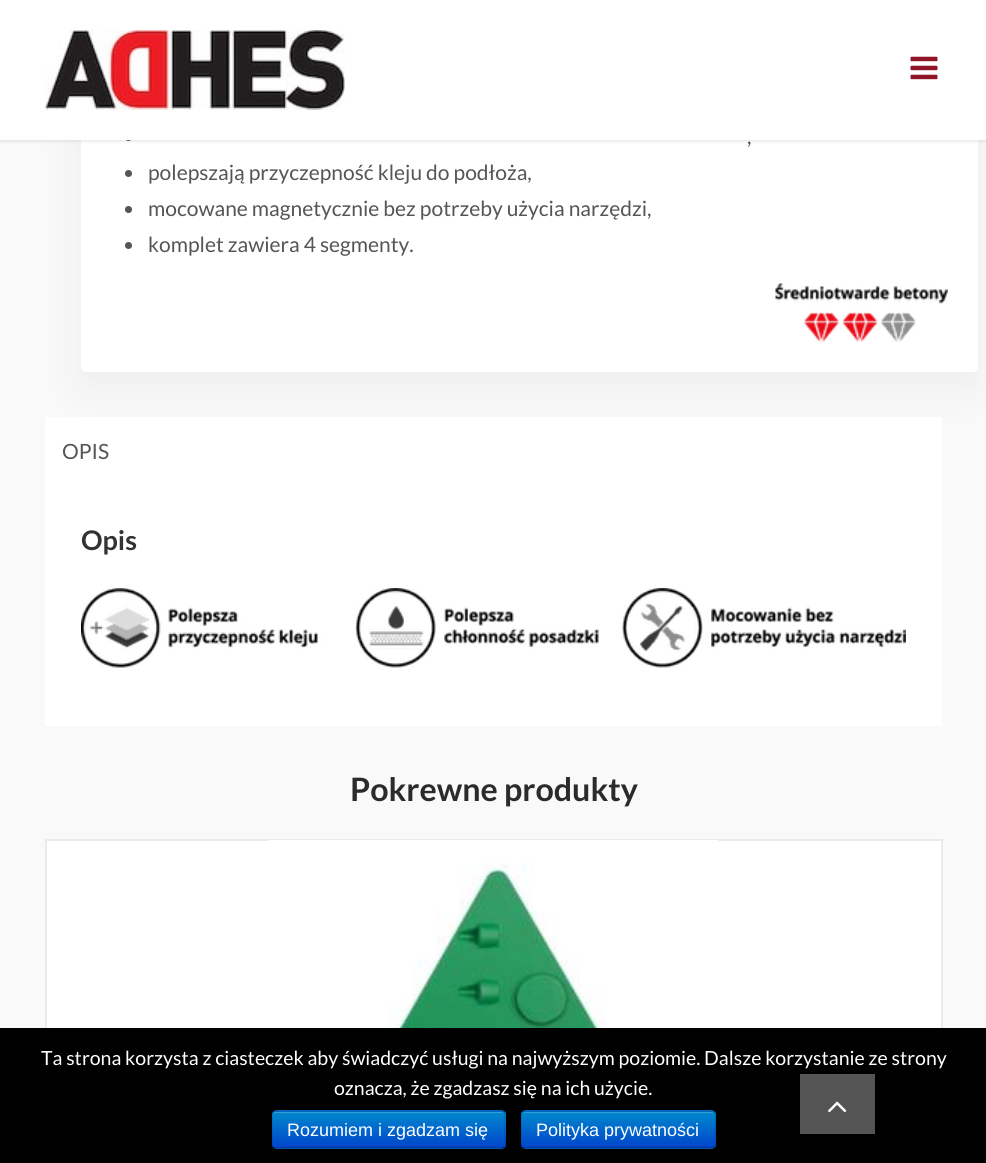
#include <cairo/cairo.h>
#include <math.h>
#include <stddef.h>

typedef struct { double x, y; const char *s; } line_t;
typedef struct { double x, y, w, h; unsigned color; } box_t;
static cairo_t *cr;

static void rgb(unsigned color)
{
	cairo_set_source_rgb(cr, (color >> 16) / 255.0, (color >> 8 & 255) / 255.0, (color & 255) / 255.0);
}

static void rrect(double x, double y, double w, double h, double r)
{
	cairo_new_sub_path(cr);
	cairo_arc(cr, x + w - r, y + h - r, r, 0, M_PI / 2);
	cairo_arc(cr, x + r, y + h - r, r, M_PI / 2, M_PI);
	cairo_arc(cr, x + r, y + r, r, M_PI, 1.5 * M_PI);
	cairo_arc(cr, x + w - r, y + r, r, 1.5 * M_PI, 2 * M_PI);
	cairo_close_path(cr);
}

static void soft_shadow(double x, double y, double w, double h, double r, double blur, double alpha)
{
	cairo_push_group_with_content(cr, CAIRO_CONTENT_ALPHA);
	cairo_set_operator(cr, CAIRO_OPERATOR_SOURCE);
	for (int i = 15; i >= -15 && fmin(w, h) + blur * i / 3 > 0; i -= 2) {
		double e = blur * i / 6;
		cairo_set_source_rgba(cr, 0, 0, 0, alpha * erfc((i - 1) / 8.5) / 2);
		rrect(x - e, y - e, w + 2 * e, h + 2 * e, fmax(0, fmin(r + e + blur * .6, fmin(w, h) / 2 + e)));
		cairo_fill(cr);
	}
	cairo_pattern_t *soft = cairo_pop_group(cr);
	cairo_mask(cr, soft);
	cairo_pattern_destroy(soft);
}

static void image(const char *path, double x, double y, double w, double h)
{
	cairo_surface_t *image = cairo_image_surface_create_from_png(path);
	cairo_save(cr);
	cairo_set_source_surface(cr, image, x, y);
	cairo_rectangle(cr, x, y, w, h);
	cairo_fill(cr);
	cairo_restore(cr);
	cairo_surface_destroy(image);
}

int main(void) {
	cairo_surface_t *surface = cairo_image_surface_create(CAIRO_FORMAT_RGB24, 986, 1163);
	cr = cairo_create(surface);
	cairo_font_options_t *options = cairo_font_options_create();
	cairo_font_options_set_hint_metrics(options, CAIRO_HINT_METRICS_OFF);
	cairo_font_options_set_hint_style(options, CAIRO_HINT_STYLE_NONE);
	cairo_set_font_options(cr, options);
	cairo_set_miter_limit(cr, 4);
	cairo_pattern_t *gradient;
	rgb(0xf9f9f9);
	cairo_paint(cr);
	rgb(0x000000);
	soft_shadow(81, -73, 897, 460, 5, 22.5, 0.05);
	rgb(0xffffff);
	rrect(81, -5, 897, 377, 5);
	cairo_fill(cr);
	rgb(0x555555);
	cairo_arc(cr, 128.5, 137.5, 3.5, 0, 2 * M_PI);
	cairo_fill(cr);
	rgb(0x000000);
	soft_shadow(0, 2, 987, 139, 0, 2, 0.12);
	rgb(0xffffff);
	cairo_rectangle(cr, 0, 0, 986, 140);
	cairo_fill(cr);
	image("img/1.png", 45, 30, 300, 80);
	image("img/2.png", 910, 56, 28, 24);
	rgb(0x555555);
	cairo_arc(cr, 128.5, 173.5, 3.5, 0, 2 * M_PI);
	cairo_fill(cr);
	cairo_arc(cr, 128.5, 209.5, 3.5, 0, 2 * M_PI);
	cairo_fill(cr);
	cairo_arc(cr, 128.5, 245.5, 3.5, 0, 2 * M_PI);
	cairo_fill(cr);
	image("img/3.png", 775, 283, 173, 59);
	rgb(0xffffff);
	cairo_rectangle(cr, 45, 417, 897, 309);
	cairo_fill(cr);
	image("img/4.png", 81, 588, 825, 80);
	{
		static const box_t items[] = {
			{47, 841, 894, 187, 0xffffff},
			{45, 839, 897, 2, 0xebeaea},
			{941, 839, 2, 189, 0xebeaea},
			{45, 839, 2, 189, 0xebeaea},
		};
		for (size_t i = 0; i < sizeof items / sizeof *items; i++) {
			rgb(items[i].color);
			cairo_rectangle(cr, items[i].x, items[i].y, items[i].w, items[i].h);
			cairo_fill(cr);
		}
	}
	image("img/5.png", 268, 840, 451, 188);
	rgb(0x000000);
	cairo_rectangle(cr, 0, 1028, 986, 135);
	cairo_fill(cr);
	rgb(0x006dcc);
	rrect(272, 1110, 234, 39, 5);
	cairo_fill(cr);
	cairo_save(cr);
	rrect(272, 1110, 234, 39, 5);
	cairo_clip(cr);
	gradient = cairo_pattern_create_linear(389, 1112, 389, 1148);
	cairo_pattern_add_color_stop_rgba(gradient, 0, 0, 0.533, 0.8, 1);
	cairo_pattern_add_color_stop_rgba(gradient, 1, 0, 0.267, 0.8, 1);
	cairo_set_source(cr, gradient);
	cairo_pattern_destroy(gradient);
	cairo_rectangle(cr, 272, 1112, 234, 36);
	cairo_fill(cr);
	cairo_restore(cr);
	rgb(0x339fd6);
	cairo_new_path(cr);
	cairo_move_to(cr, 276, 1113);
	cairo_line_to(cr, 501, 1113);
	cairo_curve_to(cr, 503, 1113, 504, 1114, 504, 1116);
	cairo_curve_to(cr, 504, 1114, 503, 1112, 501, 1112);
	cairo_line_to(cr, 276, 1112);
	cairo_curve_to(cr, 274, 1112, 273, 1114, 273, 1116);
	cairo_curve_to(cr, 273, 1114, 274, 1113, 276, 1113);
	cairo_close_path(cr);
	cairo_fill(cr);
	cairo_new_path(cr);
	cairo_move_to(cr, 503.5, 1147);
	cairo_curve_to(cr, 503, 1148, 502, 1148, 501, 1148);
	cairo_line_to(cr, 276, 1148);
	cairo_curve_to(cr, 275, 1148, 274, 1148, 273.5, 1147);
	cairo_set_source_rgba(cr, 0, 0, 0, 0.25);
	cairo_set_line_width(cr, 1.5);
	cairo_stroke(cr);
	cairo_new_path(cr);
	cairo_move_to(cr, 273.5, 1147);
	cairo_curve_to(cr, 272.5, 1146.5, 272, 1145.5, 272, 1144.5);
	cairo_line_to(cr, 272, 1114.5);
	cairo_curve_to(cr, 272, 1113.5, 272.5, 1112.5, 273.5, 1112);
	cairo_curve_to(cr, 274, 1111, 275, 1111, 276, 1111);
	cairo_line_to(cr, 501, 1111);
	cairo_curve_to(cr, 502, 1111, 503, 1111, 503.5, 1112);
	cairo_curve_to(cr, 504.5, 1112.5, 505, 1113.5, 505, 1114.5);
	cairo_line_to(cr, 505, 1144.5);
	cairo_curve_to(cr, 505, 1145.5, 504.5, 1146.5, 503.5, 1147);
	cairo_set_source_rgba(cr, 0, 0, 0, 0.1);
	cairo_stroke(cr);
	rgb(0x006dcc);
	rrect(521, 1110, 195, 39, 5);
	cairo_fill(cr);
	cairo_save(cr);
	rrect(521, 1110, 195, 39, 5);
	cairo_clip(cr);
	gradient = cairo_pattern_create_linear(618, 1112, 618, 1148);
	cairo_pattern_add_color_stop_rgba(gradient, 0, 0, 0.533, 0.8, 1);
	cairo_pattern_add_color_stop_rgba(gradient, 1, 0, 0.267, 0.8, 1);
	cairo_set_source(cr, gradient);
	cairo_pattern_destroy(gradient);
	cairo_rectangle(cr, 521, 1112, 195, 36);
	cairo_fill(cr);
	cairo_restore(cr);
	rgb(0x339fd6);
	cairo_new_path(cr);
	cairo_move_to(cr, 525, 1113);
	cairo_line_to(cr, 711, 1113);
	cairo_curve_to(cr, 713, 1113, 714, 1114, 714, 1116);
	cairo_curve_to(cr, 714, 1114, 713, 1112, 711, 1112);
	cairo_line_to(cr, 525, 1112);
	cairo_curve_to(cr, 523, 1112, 522, 1114, 522, 1116);
	cairo_curve_to(cr, 522, 1114, 523, 1113, 525, 1113);
	cairo_close_path(cr);
	cairo_fill(cr);
	cairo_new_path(cr);
	cairo_move_to(cr, 713.5, 1147);
	cairo_line_to(cr, 711, 1148);
	cairo_line_to(cr, 524.5, 1148);
	cairo_line_to(cr, 522.5, 1147);
	cairo_set_source_rgba(cr, 0, 0, 0, 0.25);
	cairo_stroke(cr);
	cairo_new_path(cr);
	cairo_move_to(cr, 522.5, 1147);
	cairo_curve_to(cr, 521.5, 1146.5, 521, 1145.5, 521, 1144.5);
	cairo_line_to(cr, 521, 1114.5);
	cairo_curve_to(cr, 521, 1113.5, 521.5, 1112.5, 522.5, 1112);
	cairo_curve_to(cr, 523, 1111, 524, 1111, 525, 1111);
	cairo_line_to(cr, 711, 1111);
	cairo_curve_to(cr, 712, 1111, 713, 1111, 713.5, 1112);
	cairo_curve_to(cr, 714.5, 1112.5, 715, 1113.5, 715, 1114.5);
	cairo_line_to(cr, 715, 1144.5);
	cairo_curve_to(cr, 715, 1145.5, 714.5, 1146.5, 713.5, 1147);
	cairo_set_source_rgba(cr, 0, 0, 0, 0.1);
	cairo_stroke(cr);
	rgb(0x545454);
	cairo_rectangle(cr, 800, 1074, 75, 60);
	cairo_fill(cr);
	image("img/6.png", 828, 1101, 19, 12);
	cairo_select_font_face(cr, "Lato", CAIRO_FONT_SLANT_NORMAL, CAIRO_FONT_WEIGHT_NORMAL);
	cairo_set_font_size(cr, 21);
	rgb(0x555555);
	{
		static const line_t items[] = {
			{747, 144, ","},
			{148, 180, "polepszają przyczepność kleju do podłoża,"},
			{148, 216, "mocowane magnetycznie bez potrzeby użycia narzędzi,"},
			{148, 252, "komplet zawiera 4 segmenty."},
			{62, 459, "OPIS"},
		};
		for (size_t i = 0; i < sizeof items / sizeof *items; i++) {
			cairo_move_to(cr, items[i].x, items[i].y);
			cairo_show_text(cr, items[i].s);
		}
	}
	cairo_select_font_face(cr, "Lato", CAIRO_FONT_SLANT_NORMAL, CAIRO_FONT_WEIGHT_BOLD);
	cairo_set_font_size(cr, 27);
	rgb(0x333333);
	cairo_move_to(cr, 81, 550);
	cairo_show_text(cr, "Opis");
	cairo_set_font_size(cr, 32.25);
	rgb(0x2b2b2b);
	cairo_move_to(cr, 350, 801);
	cairo_show_text(cr, "Pokrewne produkty");
	cairo_select_font_face(cr, "Lato", CAIRO_FONT_SLANT_NORMAL, CAIRO_FONT_WEIGHT_NORMAL);
	cairo_set_font_size(cr, 19.5);
	rgb(0xffffff);
	cairo_move_to(cr, 41, 1065);
	cairo_show_text(cr, "Ta strona korzysta z ciasteczek aby świadczyć usługi na najwyższym poziomie. Dalsze korzystanie ze strony");
	cairo_move_to(cr, 334, 1095);
	cairo_show_text(cr, "oznacza, że zgadzasz się na ich użycie.");
	cairo_select_font_face(cr, "Liberation Sans", CAIRO_FONT_SLANT_NORMAL, CAIRO_FONT_WEIGHT_NORMAL);
	cairo_set_font_size(cr, 18);
	cairo_move_to(cr, 287, 1136);
	cairo_show_text(cr, "Rozumiem i zgadzam się");
	cairo_move_to(cr, 536, 1136);
	cairo_show_text(cr, "Polityka prywatności");
	cairo_surface_write_to_png(surface, "page.png");
	cairo_font_options_destroy(options);
	cairo_destroy(cr);
	cairo_surface_destroy(surface);
	return 0;
}
